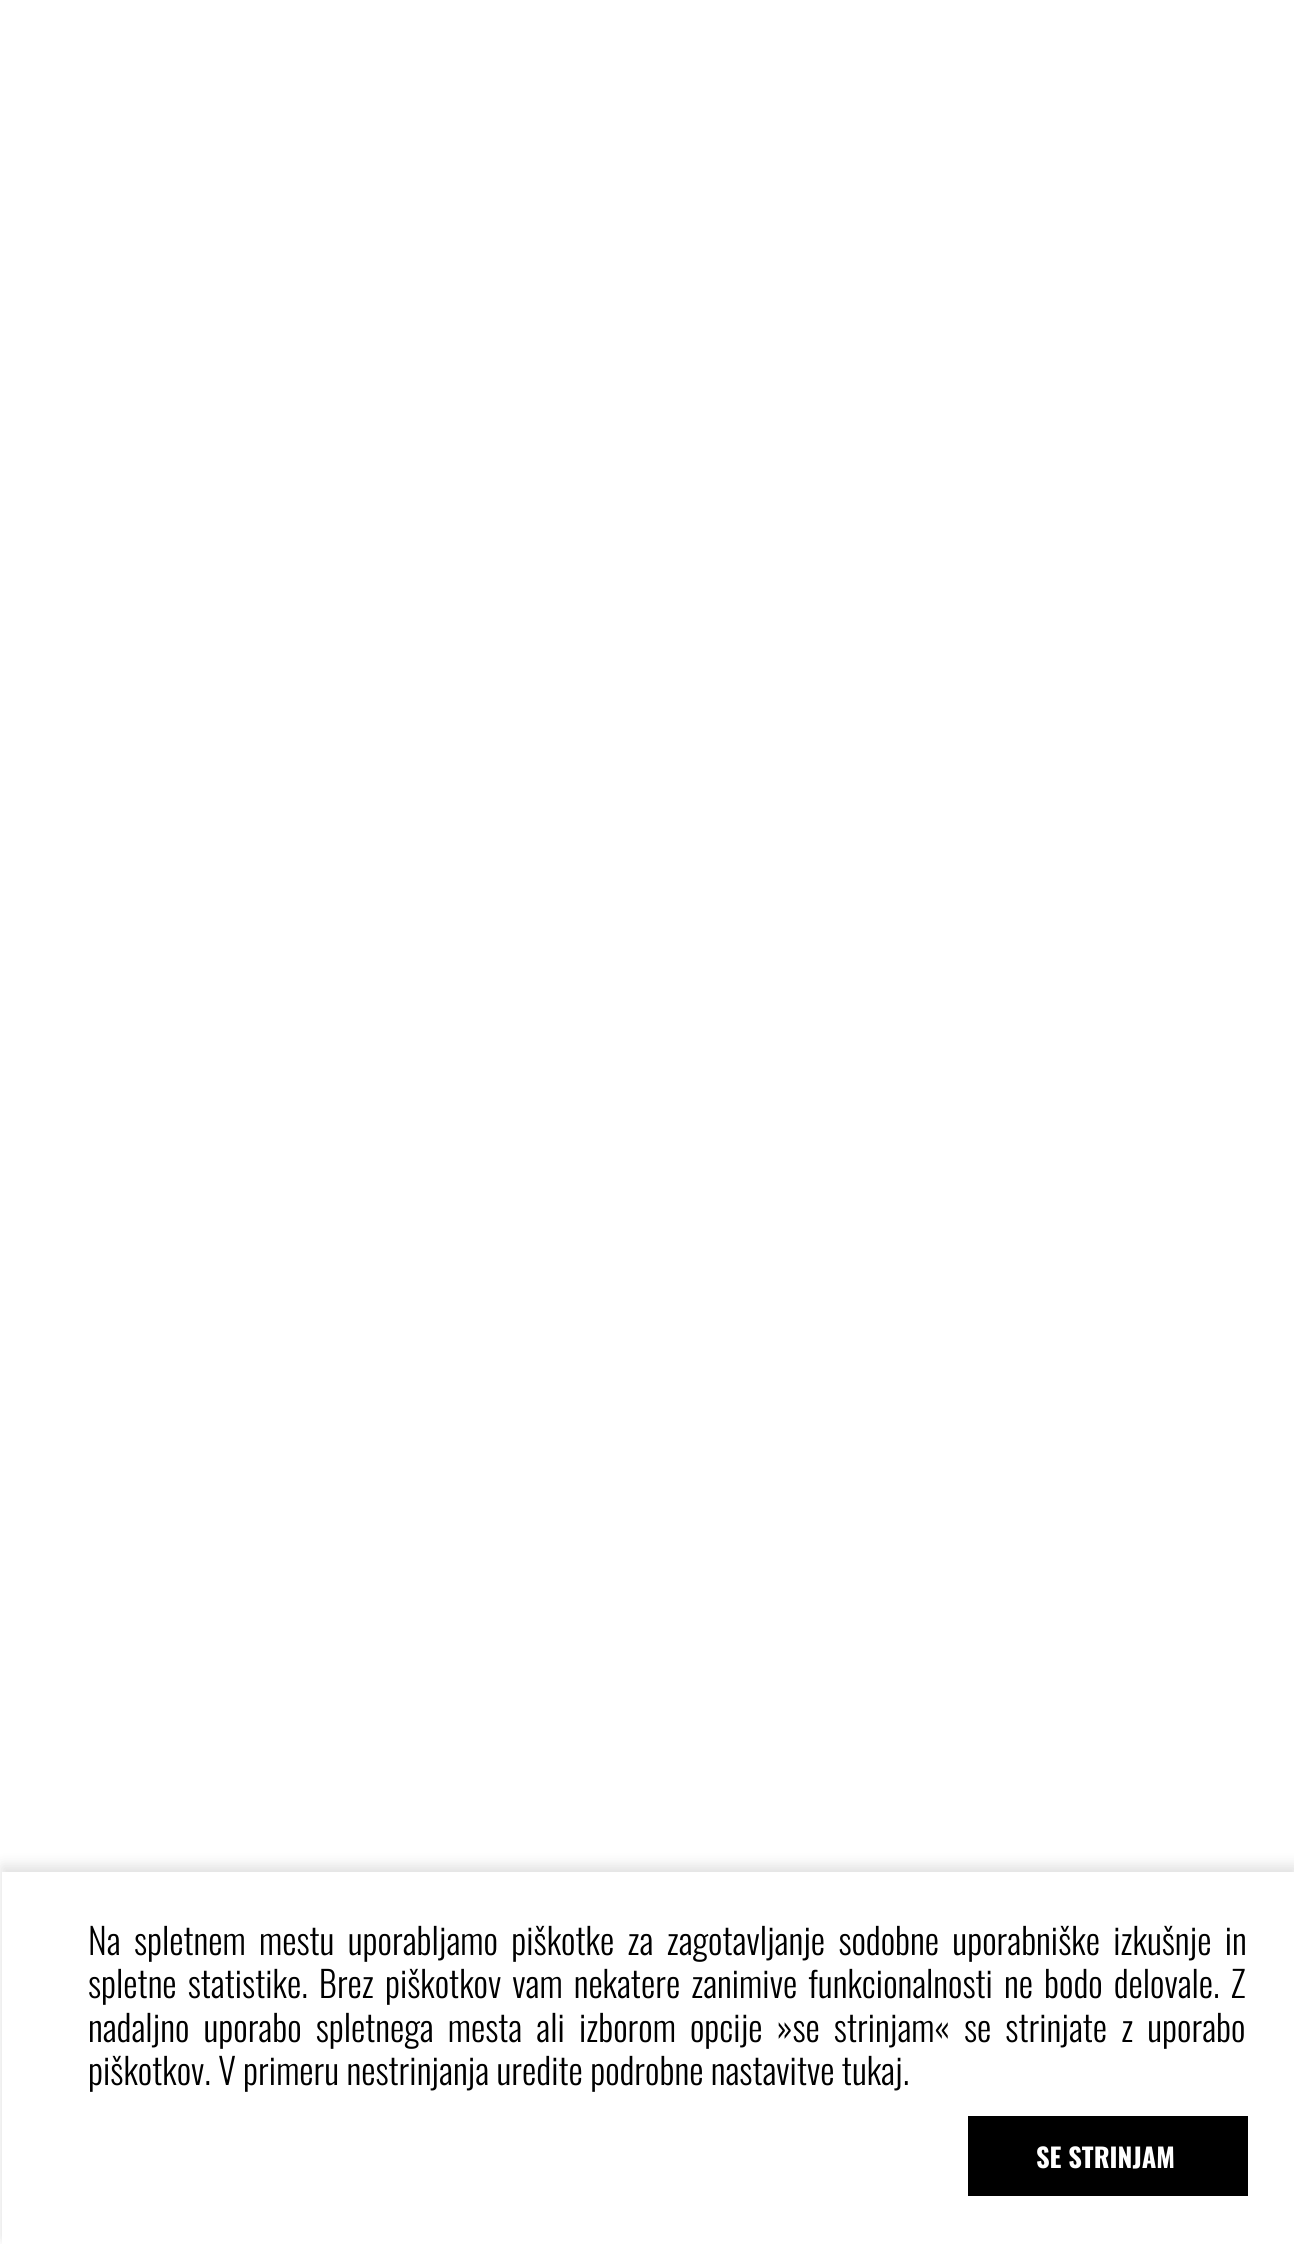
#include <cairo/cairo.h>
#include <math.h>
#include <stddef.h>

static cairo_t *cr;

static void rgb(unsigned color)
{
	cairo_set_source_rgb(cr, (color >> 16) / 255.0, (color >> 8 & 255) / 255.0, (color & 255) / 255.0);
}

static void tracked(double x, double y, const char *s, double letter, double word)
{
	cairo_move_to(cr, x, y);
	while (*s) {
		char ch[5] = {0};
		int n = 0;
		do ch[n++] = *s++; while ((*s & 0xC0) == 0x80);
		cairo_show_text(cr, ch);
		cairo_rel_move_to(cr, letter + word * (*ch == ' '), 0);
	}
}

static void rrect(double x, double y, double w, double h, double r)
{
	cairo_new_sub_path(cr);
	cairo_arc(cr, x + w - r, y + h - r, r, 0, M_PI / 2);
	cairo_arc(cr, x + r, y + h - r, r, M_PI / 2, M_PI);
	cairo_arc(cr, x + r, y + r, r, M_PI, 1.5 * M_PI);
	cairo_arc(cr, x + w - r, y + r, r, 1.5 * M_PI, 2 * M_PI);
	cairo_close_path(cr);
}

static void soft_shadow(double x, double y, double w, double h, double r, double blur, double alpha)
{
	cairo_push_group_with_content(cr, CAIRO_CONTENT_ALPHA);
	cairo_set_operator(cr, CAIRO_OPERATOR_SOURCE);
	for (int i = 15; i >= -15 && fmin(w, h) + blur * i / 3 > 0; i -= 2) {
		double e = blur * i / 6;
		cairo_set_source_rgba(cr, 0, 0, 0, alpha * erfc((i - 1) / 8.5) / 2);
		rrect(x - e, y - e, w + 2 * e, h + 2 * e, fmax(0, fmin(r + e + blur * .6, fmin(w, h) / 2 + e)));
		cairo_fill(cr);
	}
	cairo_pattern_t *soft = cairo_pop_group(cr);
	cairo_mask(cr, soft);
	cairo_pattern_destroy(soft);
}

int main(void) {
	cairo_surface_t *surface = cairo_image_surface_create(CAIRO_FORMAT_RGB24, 1294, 2244);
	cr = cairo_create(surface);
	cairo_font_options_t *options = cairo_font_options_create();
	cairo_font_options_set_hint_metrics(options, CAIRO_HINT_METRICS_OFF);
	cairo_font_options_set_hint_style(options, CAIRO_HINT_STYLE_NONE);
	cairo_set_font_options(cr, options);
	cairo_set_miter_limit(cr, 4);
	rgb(0xffffff);
	cairo_paint(cr);
	cairo_save(cr);
	cairo_set_fill_rule(cr, CAIRO_FILL_RULE_EVEN_ODD);
	cairo_new_path(cr);
	cairo_move_to(cr, 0, 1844);
	cairo_line_to(cr, 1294, 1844);
	cairo_line_to(cr, 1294, 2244);
	cairo_line_to(cr, 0, 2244);
	cairo_close_path(cr);
	cairo_move_to(cr, 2, 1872);
	cairo_line_to(cr, 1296, 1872);
	cairo_line_to(cr, 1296, 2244);
	cairo_line_to(cr, 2, 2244);
	cairo_close_path(cr);
	cairo_clip(cr);
	rgb(0x000000);
	soft_shadow(2, 1866, 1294, 372, 0, 7, 0.13);
	cairo_restore(cr);
	rgb(0x000000);
	cairo_rectangle(cr, 968, 2116, 280, 80);
	cairo_fill(cr);
	cairo_select_font_face(cr, "Oswald Light", CAIRO_FONT_SLANT_NORMAL, CAIRO_FONT_WEIGHT_NORMAL);
	cairo_set_font_size(cr, 36);
	tracked(88, 1955, "Na spletnem mestu uporabljamo piškotke za zagotavljanje sodobne uporabniške izkušnje in", 0, 6);
	tracked(88, 1998, "spletne statistike. Brez piškotkov vam nekatere zanimive funkcionalnosti ne bodo delovale. Z", 0, 3.75);
	tracked(88, 2042, "nadaljno uporabo spletnega mesta ali izborom opcije »se strinjam« se strinjate z uporabo", 0, 6.75);
	cairo_move_to(cr, 88, 2085);
	cairo_show_text(cr, "piškotkov. V primeru nestrinjanja uredite podrobne nastavitve tukaj.");
	cairo_select_font_face(cr, "Oswald", CAIRO_FONT_SLANT_NORMAL, CAIRO_FONT_WEIGHT_BOLD);
	cairo_set_font_size(cr, 26.5);
	rgb(0xffffff);
	cairo_move_to(cr, 1036, 2168);
	cairo_show_text(cr, "SE STRINJAM");
	cairo_surface_write_to_png(surface, "page.png");
	cairo_font_options_destroy(options);
	cairo_destroy(cr);
	cairo_surface_destroy(surface);
	return 0;
}
